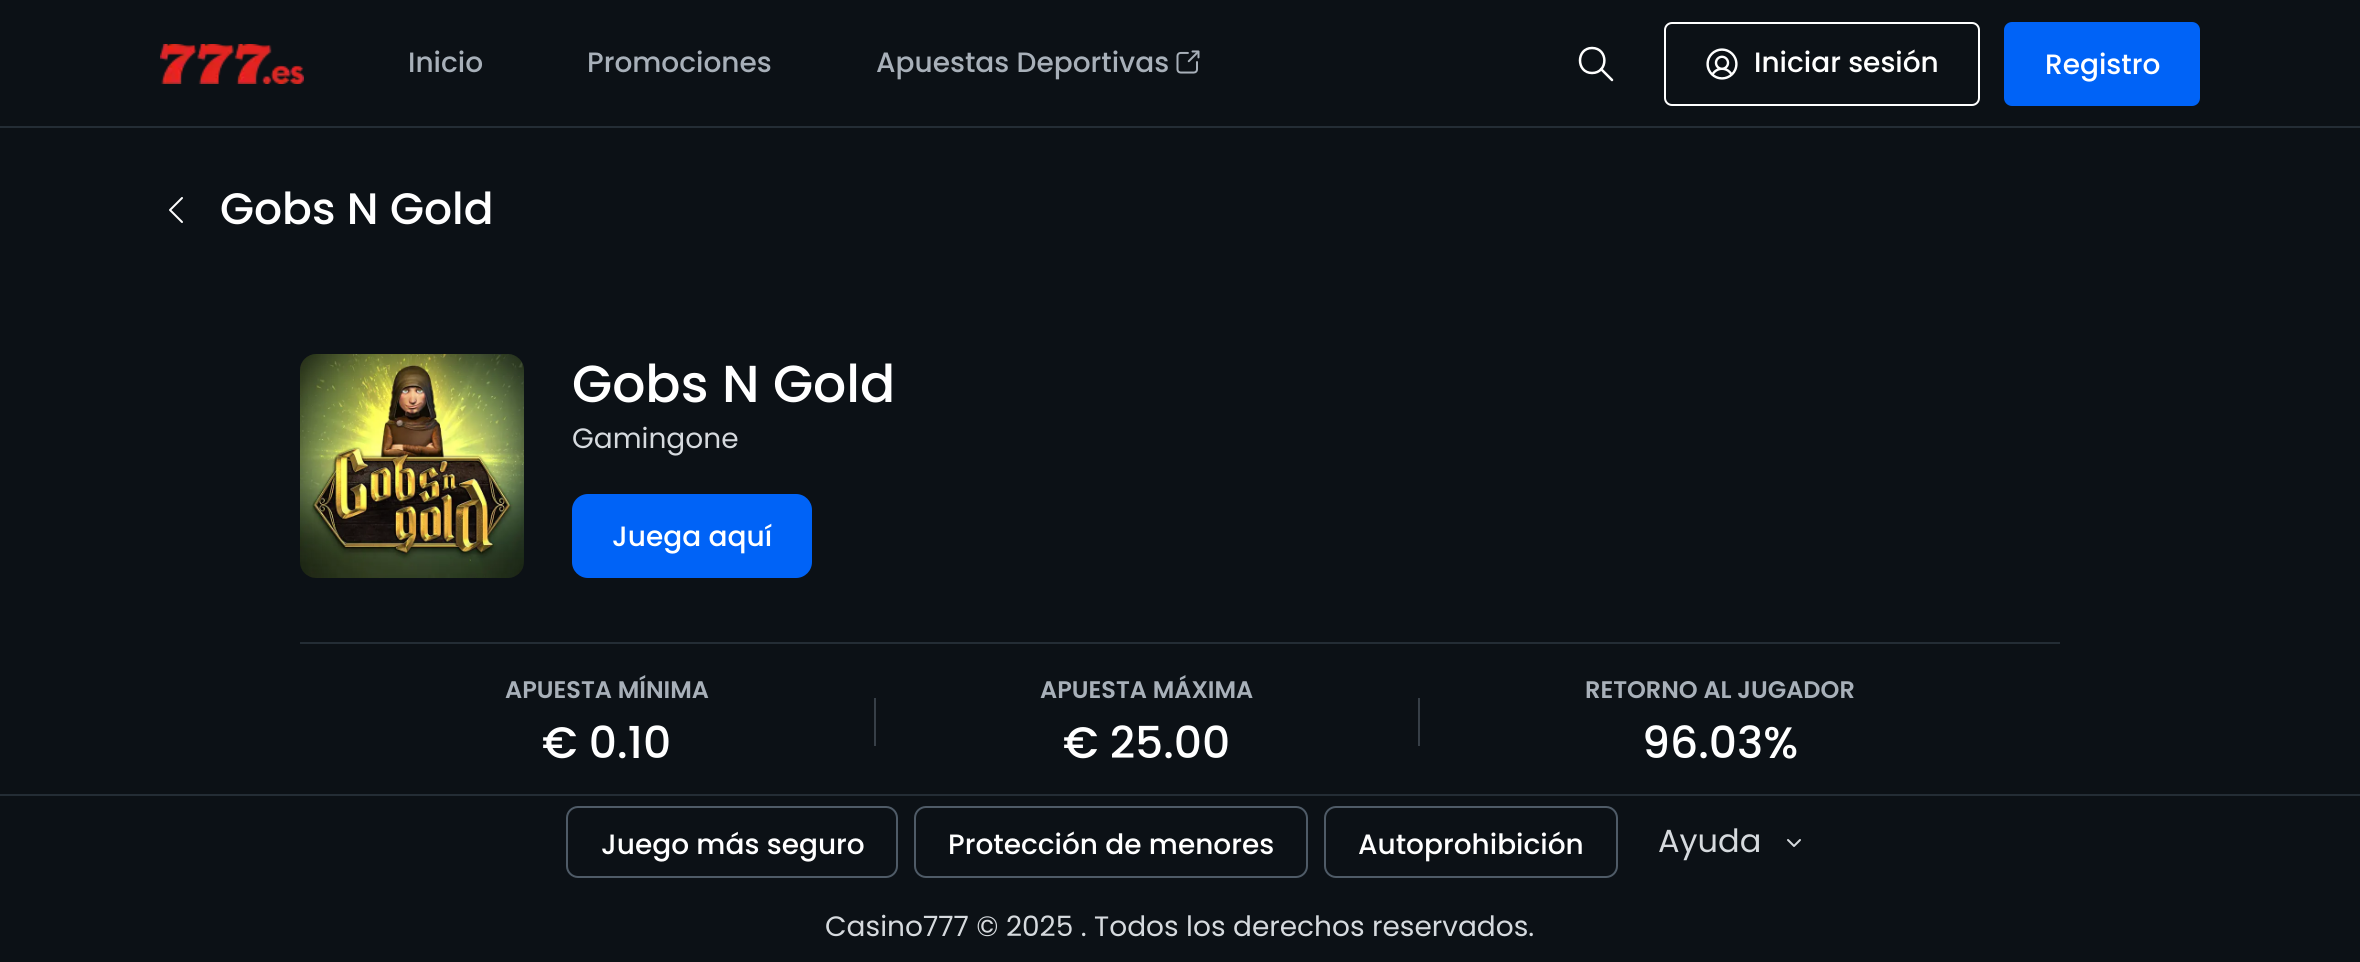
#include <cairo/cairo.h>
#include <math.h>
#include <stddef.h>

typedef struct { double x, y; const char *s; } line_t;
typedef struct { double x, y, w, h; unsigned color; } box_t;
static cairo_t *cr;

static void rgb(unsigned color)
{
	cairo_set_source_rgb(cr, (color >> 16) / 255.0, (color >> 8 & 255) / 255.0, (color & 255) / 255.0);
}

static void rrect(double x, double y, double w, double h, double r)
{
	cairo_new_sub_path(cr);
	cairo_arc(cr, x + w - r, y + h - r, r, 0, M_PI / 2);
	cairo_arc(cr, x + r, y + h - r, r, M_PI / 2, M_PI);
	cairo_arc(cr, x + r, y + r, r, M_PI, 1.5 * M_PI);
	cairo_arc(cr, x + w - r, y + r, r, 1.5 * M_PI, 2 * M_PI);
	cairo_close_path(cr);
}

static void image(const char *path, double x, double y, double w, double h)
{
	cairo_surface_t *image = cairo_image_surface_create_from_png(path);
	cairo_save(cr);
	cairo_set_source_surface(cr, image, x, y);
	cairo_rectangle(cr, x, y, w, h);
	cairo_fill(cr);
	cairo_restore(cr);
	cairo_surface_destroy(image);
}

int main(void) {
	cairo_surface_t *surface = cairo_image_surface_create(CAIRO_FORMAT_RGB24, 2360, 962);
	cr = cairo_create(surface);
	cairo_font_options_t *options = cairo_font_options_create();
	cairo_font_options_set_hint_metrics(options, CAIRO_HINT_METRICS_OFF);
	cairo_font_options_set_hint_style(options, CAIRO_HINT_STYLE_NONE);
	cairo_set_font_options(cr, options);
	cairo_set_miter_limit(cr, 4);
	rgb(0x0c1116);
	cairo_paint(cr);
	rgb(0x242d35);
	cairo_rectangle(cr, 0, 126, 2360, 2);
	cairo_fill(cr);
	image("img/1.png", 160, 44, 144, 40);
	image("img/2.png", 1176, 50, 24, 24);
	cairo_new_path(cr);
	cairo_move_to(cr, 1592, 73);
	cairo_curve_to(cr, 1608.5, 73, 1608.5, 48, 1592, 48);
	cairo_curve_to(cr, 1576, 48, 1576, 73, 1592, 73);
	cairo_close_path(cr);
	cairo_move_to(cr, 1612, 80);
	cairo_line_to(cr, 1601, 69);
	rgb(0xffffff);
	cairo_set_line_width(cr, 2.5);
	cairo_set_line_cap(cr, CAIRO_LINE_CAP_ROUND);
	cairo_set_line_join(cr, CAIRO_LINE_JOIN_ROUND);
	cairo_stroke(cr);
	rrect(1665, 23, 314, 82, 7);
	cairo_set_line_width(cr, 2);
	cairo_set_line_cap(cr, CAIRO_LINE_CAP_BUTT);
	cairo_set_line_join(cr, CAIRO_LINE_JOIN_MITER);
	cairo_stroke(cr);
	image("img/3.png", 1706, 48, 32, 32);
	rgb(0x0063f7);
	rrect(2004, 22, 196, 84, 8);
	cairo_fill(cr);
	cairo_new_path(cr);
	cairo_move_to(cr, 182, 198);
	cairo_line_to(cr, 170, 210);
	cairo_line_to(cr, 182, 222);
	rgb(0xffffff);
	cairo_set_line_cap(cr, CAIRO_LINE_CAP_ROUND);
	cairo_set_line_join(cr, CAIRO_LINE_JOIN_ROUND);
	cairo_stroke(cr);
	image("img/4.png", 300, 354, 224, 224);
	rgb(0x0063f7);
	rrect(572, 494, 240, 84, 16);
	cairo_fill(cr);
	{
		static const box_t items[] = {
			{300, 642, 1760, 2, 0x242d35},
			{874, 698, 2, 48, 0x373f47},
			{1418, 698, 2, 48, 0x373f47},
			{0, 794, 2360, 2, 0x242d35},
		};
		for (size_t i = 0; i < sizeof items / sizeof *items; i++) {
			rgb(items[i].color);
			cairo_rectangle(cr, items[i].x, items[i].y, items[i].w, items[i].h);
			cairo_fill(cr);
		}
	}
	rrect(567, 807, 330, 70, 11);
	rgb(0x4f5b67);
	cairo_set_line_cap(cr, CAIRO_LINE_CAP_BUTT);
	cairo_set_line_join(cr, CAIRO_LINE_JOIN_MITER);
	cairo_stroke(cr);
	rrect(915, 807, 392, 70, 11);
	cairo_stroke(cr);
	rrect(1325, 807, 292, 70, 11);
	cairo_stroke(cr);
	cairo_new_path(cr);
	cairo_move_to(cr, 1788, 840);
	cairo_line_to(cr, 1794, 846);
	cairo_line_to(cr, 1800, 840);
	rgb(0xd6dade);
	cairo_set_line_cap(cr, CAIRO_LINE_CAP_ROUND);
	cairo_set_line_join(cr, CAIRO_LINE_JOIN_ROUND);
	cairo_stroke(cr);
	cairo_select_font_face(cr, "Poppins Medium", CAIRO_FONT_SLANT_NORMAL, CAIRO_FONT_WEIGHT_NORMAL);
	cairo_set_font_size(cr, 28);
	rgb(0xa8b0b9);
	{
		static const line_t items[] = {
			{408, 72, "Inicio"},
			{587, 72, "Promociones"},
			{876, 72, "Apuestas Deportivas"},
		};
		for (size_t i = 0; i < sizeof items / sizeof *items; i++) {
			cairo_move_to(cr, items[i].x, items[i].y);
			cairo_show_text(cr, items[i].s);
		}
	}
	rgb(0xffffff);
	cairo_move_to(cr, 1754, 72);
	cairo_show_text(cr, "Iniciar sesión");
	cairo_move_to(cr, 2045, 74);
	cairo_show_text(cr, "Registro");
	cairo_set_font_size(cr, 44);
	cairo_move_to(cr, 220, 224);
	cairo_show_text(cr, "Gobs N Gold");
	cairo_set_font_size(cr, 52);
	cairo_move_to(cr, 572, 402);
	cairo_show_text(cr, "Gobs N Gold");
	cairo_select_font_face(cr, "Poppins", CAIRO_FONT_SLANT_NORMAL, CAIRO_FONT_WEIGHT_NORMAL);
	cairo_set_font_size(cr, 28);
	rgb(0xd6dade);
	cairo_move_to(cr, 572, 448);
	cairo_show_text(cr, "Gamingone");
	cairo_select_font_face(cr, "Poppins Medium", CAIRO_FONT_SLANT_NORMAL, CAIRO_FONT_WEIGHT_NORMAL);
	rgb(0xffffff);
	cairo_move_to(cr, 612, 546);
	cairo_show_text(cr, "Juega aquí");
	cairo_select_font_face(cr, "Poppins SemiBold", CAIRO_FONT_SLANT_NORMAL, CAIRO_FONT_WEIGHT_NORMAL);
	cairo_set_font_size(cr, 24);
	rgb(0xa8b0b9);
	cairo_move_to(cr, 505, 698);
	cairo_show_text(cr, "APUESTA MÍNIMA");
	cairo_select_font_face(cr, "Poppins Medium", CAIRO_FONT_SLANT_NORMAL, CAIRO_FONT_WEIGHT_NORMAL);
	cairo_set_font_size(cr, 44);
	rgb(0xffffff);
	cairo_move_to(cr, 542, 758);
	cairo_show_text(cr, "€ 0.10");
	cairo_select_font_face(cr, "Poppins SemiBold", CAIRO_FONT_SLANT_NORMAL, CAIRO_FONT_WEIGHT_NORMAL);
	cairo_set_font_size(cr, 24);
	rgb(0xa8b0b9);
	cairo_move_to(cr, 1040, 698);
	cairo_show_text(cr, "APUESTA MÁXIMA");
	cairo_select_font_face(cr, "Poppins Medium", CAIRO_FONT_SLANT_NORMAL, CAIRO_FONT_WEIGHT_NORMAL);
	cairo_set_font_size(cr, 44);
	rgb(0xffffff);
	cairo_move_to(cr, 1063, 758);
	cairo_show_text(cr, "€ 25.00");
	cairo_select_font_face(cr, "Poppins SemiBold", CAIRO_FONT_SLANT_NORMAL, CAIRO_FONT_WEIGHT_NORMAL);
	cairo_set_font_size(cr, 24);
	rgb(0xa8b0b9);
	cairo_move_to(cr, 1585, 698);
	cairo_show_text(cr, "RETORNO AL JUGADOR");
	cairo_select_font_face(cr, "Poppins Medium", CAIRO_FONT_SLANT_NORMAL, CAIRO_FONT_WEIGHT_NORMAL);
	cairo_set_font_size(cr, 44);
	rgb(0xffffff);
	cairo_move_to(cr, 1642, 758);
	cairo_show_text(cr, "96.03%");
	cairo_set_font_size(cr, 28);
	{
		static const line_t items[] = {
			{601, 854, "Juego más seguro"},
			{948, 854, "Protección de menores"},
			{1358, 854, "Autoprohibición"},
		};
		for (size_t i = 0; i < sizeof items / sizeof *items; i++) {
			cairo_move_to(cr, items[i].x, items[i].y);
			cairo_show_text(cr, items[i].s);
		}
	}
	cairo_select_font_face(cr, "Poppins", CAIRO_FONT_SLANT_NORMAL, CAIRO_FONT_WEIGHT_NORMAL);
	cairo_set_font_size(cr, 32);
	rgb(0xd6dade);
	cairo_move_to(cr, 1658, 852);
	cairo_show_text(cr, "Ayuda");
	cairo_set_font_size(cr, 28);
	cairo_move_to(cr, 825, 936);
	cairo_show_text(cr, "Casino777 © 2025 . Todos los derechos reservados.");
	cairo_surface_write_to_png(surface, "page.png");
	cairo_font_options_destroy(options);
	cairo_destroy(cr);
	cairo_surface_destroy(surface);
	return 0;
}
